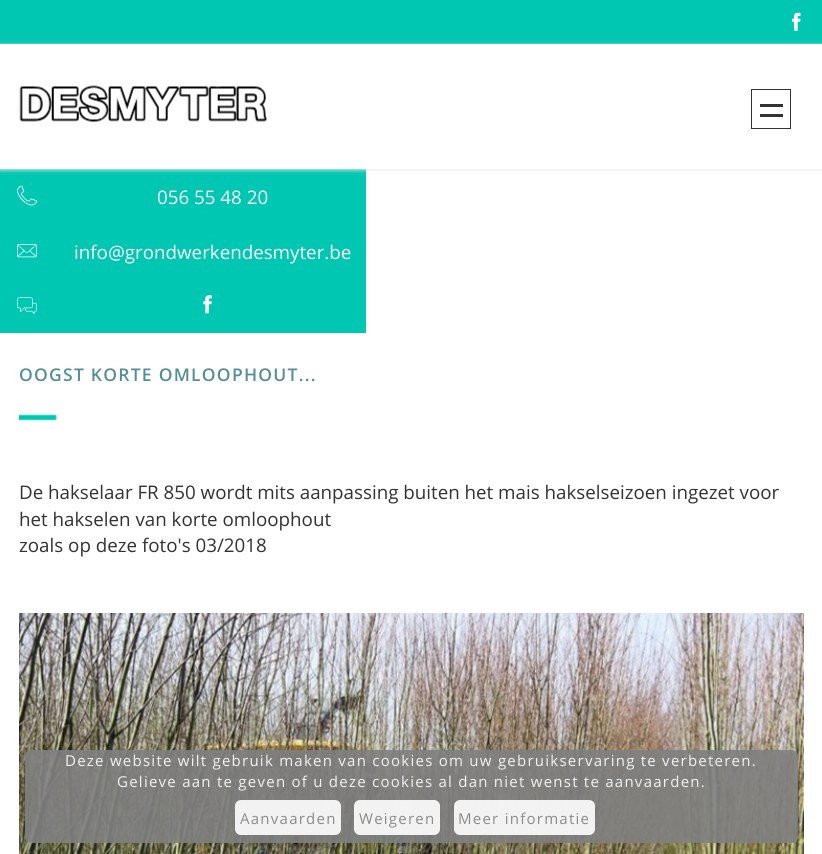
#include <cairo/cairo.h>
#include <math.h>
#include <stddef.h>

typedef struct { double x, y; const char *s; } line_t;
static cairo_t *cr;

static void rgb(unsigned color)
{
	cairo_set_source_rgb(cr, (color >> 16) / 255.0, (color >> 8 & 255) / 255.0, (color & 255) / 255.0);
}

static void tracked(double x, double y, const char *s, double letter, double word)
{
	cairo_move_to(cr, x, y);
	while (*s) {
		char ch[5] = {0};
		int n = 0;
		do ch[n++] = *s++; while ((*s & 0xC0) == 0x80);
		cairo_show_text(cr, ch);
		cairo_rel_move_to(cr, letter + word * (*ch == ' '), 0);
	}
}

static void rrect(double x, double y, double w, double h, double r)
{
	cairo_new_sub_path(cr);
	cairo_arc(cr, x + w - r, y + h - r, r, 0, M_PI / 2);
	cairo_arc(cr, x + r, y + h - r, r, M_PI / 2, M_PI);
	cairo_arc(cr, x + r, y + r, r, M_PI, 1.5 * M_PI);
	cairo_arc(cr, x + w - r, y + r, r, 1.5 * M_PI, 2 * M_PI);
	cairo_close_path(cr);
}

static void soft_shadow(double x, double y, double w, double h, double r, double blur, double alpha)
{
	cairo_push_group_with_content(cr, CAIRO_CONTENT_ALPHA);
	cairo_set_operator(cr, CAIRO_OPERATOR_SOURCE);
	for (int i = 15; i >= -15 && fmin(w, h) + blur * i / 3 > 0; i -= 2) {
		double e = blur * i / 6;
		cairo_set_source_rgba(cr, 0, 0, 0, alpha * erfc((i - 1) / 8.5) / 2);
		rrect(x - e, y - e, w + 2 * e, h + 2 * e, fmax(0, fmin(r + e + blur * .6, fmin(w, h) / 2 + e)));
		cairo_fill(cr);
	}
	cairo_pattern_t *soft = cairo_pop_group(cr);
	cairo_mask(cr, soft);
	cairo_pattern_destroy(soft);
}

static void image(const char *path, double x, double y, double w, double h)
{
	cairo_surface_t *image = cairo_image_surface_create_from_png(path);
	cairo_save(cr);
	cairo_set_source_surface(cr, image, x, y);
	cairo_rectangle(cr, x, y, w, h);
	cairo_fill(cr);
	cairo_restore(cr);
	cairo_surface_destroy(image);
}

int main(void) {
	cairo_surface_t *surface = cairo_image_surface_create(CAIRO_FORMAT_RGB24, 822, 854);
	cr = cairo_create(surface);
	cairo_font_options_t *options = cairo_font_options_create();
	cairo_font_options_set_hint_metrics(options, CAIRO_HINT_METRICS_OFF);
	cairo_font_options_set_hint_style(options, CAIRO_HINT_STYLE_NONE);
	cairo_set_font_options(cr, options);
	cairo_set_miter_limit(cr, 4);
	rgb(0xffffff);
	cairo_paint(cr);
	rgb(0x00c7b1);
	cairo_rectangle(cr, 0, 0, 822, 44);
	cairo_fill(cr);
	image("img/1.png", 792, 12, 9, 19);
	cairo_rectangle(cr, 0, 169, 366, 164);
	cairo_fill(cr);
	rgb(0xe9e9e9);
	soft_shadow(0, 45, 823, 125, 0, 2, 1);
	rgb(0xffffff);
	cairo_rectangle(cr, 0, 44, 822, 125);
	cairo_fill(cr);
	image("img/2.png", 19, 85, 248, 37);
	cairo_rectangle(cr, 751.5, 89.5, 39, 39);
	rgb(0x333333);
	cairo_set_line_width(cr, 1);
	cairo_stroke(cr);
	cairo_rectangle(cr, 760, 104, 23, 3);
	cairo_fill(cr);
	cairo_rectangle(cr, 760, 114, 23, 3);
	cairo_fill(cr);
	image("img/3.png", 17, 185, 20, 21);
	image("img/4.png", 17, 244, 20, 14);
	image("img/5.png", 17, 297, 20, 18);
	image("img/6.png", 203, 295, 9, 19);
	image("img/7.png", 19, 414, 38, 7);
	image("img/8.png", 19, 613, 785, 241);
	cairo_set_source_rgba(cr, 0.502, 0.502, 0.502, 0.9);
	rrect(25, 750, 773, 93, 6);
	cairo_fill(cr);
	cairo_set_source_rgba(cr, 1, 1, 1, 0.9);
	rrect(235, 800, 106, 35, 6);
	cairo_fill(cr);
	rrect(354, 800, 86, 35, 6);
	cairo_fill(cr);
	rrect(454, 800, 141, 35, 6);
	cairo_fill(cr);
	cairo_select_font_face(cr, "Open Sans", CAIRO_FONT_SLANT_NORMAL, CAIRO_FONT_WEIGHT_NORMAL);
	cairo_set_font_size(cr, 18.75);
	rgb(0xffffff);
	cairo_move_to(cr, 157, 204);
	cairo_show_text(cr, "056 55 48 20");
	cairo_move_to(cr, 74, 259);
	cairo_show_text(cr, "info@grondwerkendesmyter.be");
	cairo_select_font_face(cr, "Open Sans SemiBold", CAIRO_FONT_SLANT_NORMAL, CAIRO_FONT_WEIGHT_NORMAL);
	cairo_set_font_size(cr, 17.5);
	rgb(0x548f96);
	tracked(19, 381, "OOGST KORTE OMLOOPHOUT...", 1.25, 0);
	cairo_select_font_face(cr, "Open Sans", CAIRO_FONT_SLANT_NORMAL, CAIRO_FONT_WEIGHT_NORMAL);
	cairo_set_font_size(cr, 18.75);
	rgb(0x333333);
	{
		static const line_t items[] = {
			{19, 499, "De hakselaar FR 850 wordt mits aanpassing buiten het mais hakselseizoen ingezet voor"},
			{19, 526, "het hakselen van korte omloophout"},
			{19, 552, "zoals op deze foto's 03/2018"},
		};
		for (size_t i = 0; i < sizeof items / sizeof *items; i++) {
			cairo_move_to(cr, items[i].x, items[i].y);
			cairo_show_text(cr, items[i].s);
		}
	}
	cairo_set_font_size(cr, 15);
	rgb(0xf2f2f2);
	tracked(65, 766, "Deze website wilt gebruik maken van cookies om uw gebruikservaring te verbeteren.", 1.25, 0);
	tracked(117, 787, "Gelieve aan te geven of u deze cookies al dan niet wenst te aanvaarden.", 1.25, 0);
	rgb(0x8b8b8b);
	{
		static const line_t items[] = {
			{240, 824, "Aanvaarden"},
			{359, 824, "Weigeren"},
			{458, 824, "Meer informatie"},
		};
		for (size_t i = 0; i < sizeof items / sizeof *items; i++) {
			tracked(items[i].x, items[i].y, items[i].s, 1.25, 0);
		}
	}
	cairo_surface_write_to_png(surface, "page.png");
	cairo_font_options_destroy(options);
	cairo_destroy(cr);
	cairo_surface_destroy(surface);
	return 0;
}
